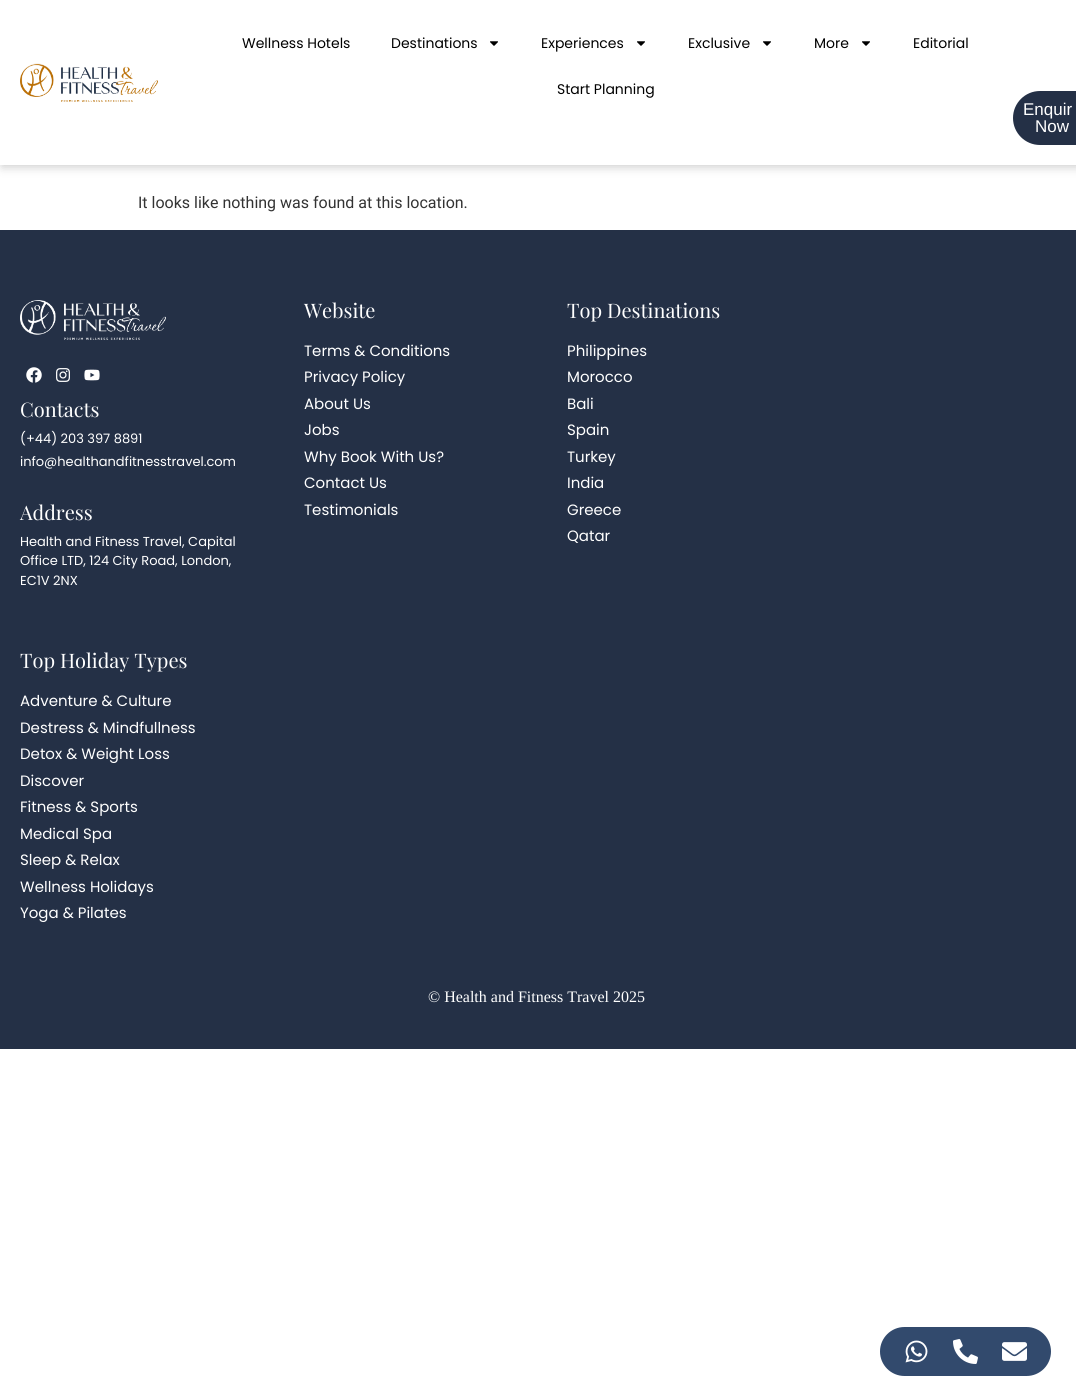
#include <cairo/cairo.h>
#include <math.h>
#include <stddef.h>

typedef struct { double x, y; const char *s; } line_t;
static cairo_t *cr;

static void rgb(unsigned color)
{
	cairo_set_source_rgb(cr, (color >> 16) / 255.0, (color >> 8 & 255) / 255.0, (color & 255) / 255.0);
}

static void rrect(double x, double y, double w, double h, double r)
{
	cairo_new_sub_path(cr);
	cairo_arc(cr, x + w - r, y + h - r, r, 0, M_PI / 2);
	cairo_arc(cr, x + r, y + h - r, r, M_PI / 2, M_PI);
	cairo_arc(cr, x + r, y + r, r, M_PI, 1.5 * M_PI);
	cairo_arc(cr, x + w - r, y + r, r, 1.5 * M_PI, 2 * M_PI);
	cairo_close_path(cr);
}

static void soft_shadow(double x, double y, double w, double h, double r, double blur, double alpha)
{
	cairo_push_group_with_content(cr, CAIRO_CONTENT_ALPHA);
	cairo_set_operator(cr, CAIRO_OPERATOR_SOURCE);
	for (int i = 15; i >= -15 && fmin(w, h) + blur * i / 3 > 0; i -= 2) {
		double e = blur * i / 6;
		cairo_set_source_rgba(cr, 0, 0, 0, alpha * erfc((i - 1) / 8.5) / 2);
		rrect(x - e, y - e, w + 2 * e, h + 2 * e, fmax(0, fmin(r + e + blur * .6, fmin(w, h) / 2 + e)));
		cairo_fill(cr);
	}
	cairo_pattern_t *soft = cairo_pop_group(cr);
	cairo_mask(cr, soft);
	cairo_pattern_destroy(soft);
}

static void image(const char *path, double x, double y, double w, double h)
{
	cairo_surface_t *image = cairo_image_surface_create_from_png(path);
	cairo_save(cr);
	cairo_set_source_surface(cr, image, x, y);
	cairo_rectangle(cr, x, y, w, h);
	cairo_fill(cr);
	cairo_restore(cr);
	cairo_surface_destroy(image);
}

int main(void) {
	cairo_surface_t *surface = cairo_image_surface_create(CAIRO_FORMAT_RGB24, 1076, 1396);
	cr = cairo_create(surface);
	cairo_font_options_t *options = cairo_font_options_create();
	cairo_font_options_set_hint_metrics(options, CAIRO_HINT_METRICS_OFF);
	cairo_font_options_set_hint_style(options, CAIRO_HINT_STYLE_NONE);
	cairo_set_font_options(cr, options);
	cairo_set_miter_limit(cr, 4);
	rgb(0xffffff);
	cairo_paint(cr);
	rgb(0x000000);
	soft_shadow(2, 2, 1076, 165, 0, 5, 0.2);
	rgb(0xffffff);
	cairo_rectangle(cr, 0, 0, 1076, 165);
	cairo_fill(cr);
	image("img/1.png", 20, 63, 138, 39);
	image("img/2.png", 490, 41, 8, 5);
	image("img/2.png", 637, 41, 8, 5);
	image("img/2.png", 763, 41, 8, 5);
	image("img/2.png", 862, 41, 8, 5);
	rgb(0x243046);
	rrect(1013, 91, 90, 54, 27);
	cairo_fill(cr);
	cairo_rectangle(cr, 0, 230, 1076, 819);
	cairo_fill(cr);
	image("img/3.png", 20, 300, 146, 40);
	image("img/4.png", 26, 367, 16, 16);
	image("img/5.png", 56, 368, 14, 14);
	image("img/6.png", 84, 369, 16, 12);
	rgb(0x324a6d);
	rrect(880, 1327, 171, 49, 24.5);
	cairo_fill(cr);
	image("img/7.png", 905, 1340, 23, 23);
	image("img/8.png", 953, 1339, 25, 25);
	image("img/9.png", 1002, 1342, 25, 19);
	cairo_select_font_face(cr, "Poppins", CAIRO_FONT_SLANT_NORMAL, CAIRO_FONT_WEIGHT_NORMAL);
	cairo_set_font_size(cr, 14);
	rgb(0x000000);
	{
		static const line_t items[] = {
			{242, 48, "Wellness Hotels"},
			{391, 48, "Destinations"},
			{541, 48, "Experiences"},
			{688, 48, "Exclusive"},
			{814, 48, "More"},
			{913, 48, "Editorial"},
			{557, 94, "Start Planning"},
		};
		for (size_t i = 0; i < sizeof items / sizeof *items; i++) {
			cairo_move_to(cr, items[i].x, items[i].y);
			cairo_show_text(cr, items[i].s);
		}
	}
	cairo_select_font_face(cr, "Liberation Sans", CAIRO_FONT_SLANT_NORMAL, CAIRO_FONT_WEIGHT_NORMAL);
	cairo_set_font_size(cr, 17);
	rgb(0xffffff);
	cairo_move_to(cr, 1023, 115);
	cairo_show_text(cr, "Enquir");
	cairo_move_to(cr, 1035, 132);
	cairo_show_text(cr, "Now");
	cairo_select_font_face(cr, "Roboto", CAIRO_FONT_SLANT_NORMAL, CAIRO_FONT_WEIGHT_NORMAL);
	cairo_set_font_size(cr, 16);
	rgb(0x333333);
	cairo_move_to(cr, 138, 208);
	cairo_show_text(cr, "It looks like nothing was found at this location.");
	cairo_select_font_face(cr, "Playfair Display", CAIRO_FONT_SLANT_NORMAL, CAIRO_FONT_WEIGHT_NORMAL);
	cairo_set_font_size(cr, 20);
	rgb(0xffffff);
	cairo_move_to(cr, 20, 417);
	cairo_show_text(cr, "Contacts");
	cairo_select_font_face(cr, "Poppins", CAIRO_FONT_SLANT_NORMAL, CAIRO_FONT_WEIGHT_NORMAL);
	cairo_set_font_size(cr, 13);
	cairo_move_to(cr, 20, 443);
	cairo_show_text(cr, "(+44) 203 397 8891");
	cairo_move_to(cr, 20, 466);
	cairo_show_text(cr, "info@healthandfitnesstravel.com");
	cairo_select_font_face(cr, "Playfair Display", CAIRO_FONT_SLANT_NORMAL, CAIRO_FONT_WEIGHT_NORMAL);
	cairo_set_font_size(cr, 20);
	cairo_move_to(cr, 20, 520);
	cairo_show_text(cr, "Address");
	cairo_select_font_face(cr, "Poppins", CAIRO_FONT_SLANT_NORMAL, CAIRO_FONT_WEIGHT_NORMAL);
	cairo_set_font_size(cr, 13);
	{
		static const line_t items[] = {
			{20, 546, "Health and Fitness Travel, Capital"},
			{20, 565, "Office LTD, 124 City Road, London,"},
			{20, 585, "EC1V 2NX"},
		};
		for (size_t i = 0; i < sizeof items / sizeof *items; i++) {
			cairo_move_to(cr, items[i].x, items[i].y);
			cairo_show_text(cr, items[i].s);
		}
	}
	cairo_select_font_face(cr, "Playfair Display", CAIRO_FONT_SLANT_NORMAL, CAIRO_FONT_WEIGHT_NORMAL);
	cairo_set_font_size(cr, 20);
	cairo_move_to(cr, 304, 318);
	cairo_show_text(cr, "Website");
	cairo_select_font_face(cr, "Poppins", CAIRO_FONT_SLANT_NORMAL, CAIRO_FONT_WEIGHT_NORMAL);
	cairo_set_font_size(cr, 15);
	{
		static const line_t items[] = {
			{304, 356, "Terms & Conditions"},
			{304, 382, "Privacy Policy"},
			{304, 409, "About Us"},
			{304, 435, "Jobs"},
			{304, 462, "Why Book With Us?"},
			{304, 488, "Contact Us"},
			{304, 515, "Testimonials"},
		};
		for (size_t i = 0; i < sizeof items / sizeof *items; i++) {
			cairo_move_to(cr, items[i].x, items[i].y);
			cairo_show_text(cr, items[i].s);
		}
	}
	cairo_select_font_face(cr, "Playfair Display", CAIRO_FONT_SLANT_NORMAL, CAIRO_FONT_WEIGHT_NORMAL);
	cairo_set_font_size(cr, 20);
	cairo_move_to(cr, 567, 318);
	cairo_show_text(cr, "Top Destinations");
	cairo_select_font_face(cr, "Poppins", CAIRO_FONT_SLANT_NORMAL, CAIRO_FONT_WEIGHT_NORMAL);
	cairo_set_font_size(cr, 15);
	{
		static const line_t items[] = {
			{567, 356, "Philippines"},
			{567, 382, "Morocco"},
			{567, 409, "Bali"},
			{567, 435, "Spain"},
			{567, 462, "Turkey"},
			{567, 488, "India"},
			{567, 515, "Greece"},
			{567, 541, "Qatar"},
		};
		for (size_t i = 0; i < sizeof items / sizeof *items; i++) {
			cairo_move_to(cr, items[i].x, items[i].y);
			cairo_show_text(cr, items[i].s);
		}
	}
	cairo_select_font_face(cr, "Playfair Display", CAIRO_FONT_SLANT_NORMAL, CAIRO_FONT_WEIGHT_NORMAL);
	cairo_set_font_size(cr, 20);
	cairo_move_to(cr, 20, 668);
	cairo_show_text(cr, "Top Holiday Types");
	cairo_select_font_face(cr, "Poppins", CAIRO_FONT_SLANT_NORMAL, CAIRO_FONT_WEIGHT_NORMAL);
	cairo_set_font_size(cr, 15);
	{
		static const line_t items[] = {
			{20, 706, "Adventure & Culture"},
			{20, 733, "Destress & Mindfullness"},
			{20, 759, "Detox & Weight Loss"},
			{20, 786, "Discover"},
			{20, 812, "Fitness & Sports"},
			{20, 839, "Medical Spa"},
			{20, 865, "Sleep & Relax"},
			{20, 892, "Wellness Holidays"},
			{20, 918, "Yoga & Pilates"},
		};
		for (size_t i = 0; i < sizeof items / sizeof *items; i++) {
			cairo_move_to(cr, items[i].x, items[i].y);
			cairo_show_text(cr, items[i].s);
		}
	}
	cairo_select_font_face(cr, "Liberation Serif", CAIRO_FONT_SLANT_NORMAL, CAIRO_FONT_WEIGHT_NORMAL);
	cairo_set_font_size(cr, 16);
	cairo_move_to(cr, 428, 1002);
	cairo_show_text(cr, "© Health and Fitness Travel 2025");
	cairo_surface_write_to_png(surface, "page.png");
	cairo_font_options_destroy(options);
	cairo_destroy(cr);
	cairo_surface_destroy(surface);
	return 0;
}
